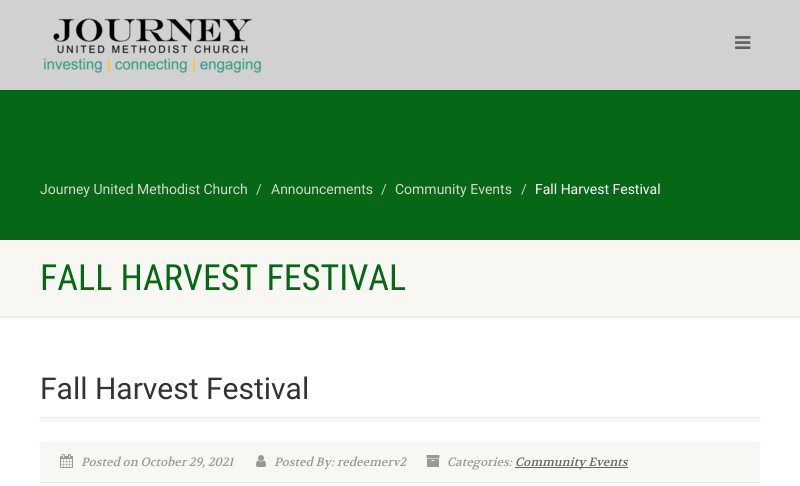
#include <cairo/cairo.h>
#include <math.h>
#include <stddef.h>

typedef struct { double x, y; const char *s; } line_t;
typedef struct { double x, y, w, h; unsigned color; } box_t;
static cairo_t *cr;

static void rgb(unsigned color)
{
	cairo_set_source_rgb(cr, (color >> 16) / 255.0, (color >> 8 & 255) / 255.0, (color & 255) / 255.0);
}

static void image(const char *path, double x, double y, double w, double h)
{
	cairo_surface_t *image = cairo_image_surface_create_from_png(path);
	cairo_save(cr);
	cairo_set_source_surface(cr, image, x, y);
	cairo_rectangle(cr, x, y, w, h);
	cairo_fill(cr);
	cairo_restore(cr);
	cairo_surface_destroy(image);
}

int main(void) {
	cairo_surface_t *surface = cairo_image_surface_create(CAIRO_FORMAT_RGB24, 800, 486);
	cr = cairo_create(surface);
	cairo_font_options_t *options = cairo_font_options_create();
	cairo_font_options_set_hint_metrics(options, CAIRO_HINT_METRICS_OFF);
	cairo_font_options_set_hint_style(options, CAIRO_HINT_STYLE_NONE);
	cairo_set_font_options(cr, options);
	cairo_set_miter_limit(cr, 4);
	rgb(0xffffff);
	cairo_paint(cr);
	rgb(0x055e14);
	cairo_rectangle(cr, 0, 90, 800, 2);
	cairo_fill(cr);
	rgb(0xd2d1d1);
	cairo_rectangle(cr, 0, 0, 800, 90);
	cairo_fill(cr);
	image("img/1.png", 43, 18, 219, 55);
	image("img/2.png", 735, 36, 16, 13);
	{
		static const box_t items[] = {
			{0, 92, 800, 148, 0x066816},
			{0, 316, 800, 2, 0xededed},
			{0, 240, 800, 76, 0xf8f7f3},
			{40, 417, 720, 1, 0xeceae4},
			{40, 418, 720, 4, 0xf8f7f3},
			{40, 442, 720, 40, 0xf8f7f3},
			{40, 482, 720, 1, 0xeceae4},
		};
		for (size_t i = 0; i < sizeof items / sizeof *items; i++) {
			rgb(items[i].color);
			cairo_rectangle(cr, items[i].x, items[i].y, items[i].w, items[i].h);
			cairo_fill(cr);
		}
	}
	image("img/3.png", 60, 454, 13, 14);
	image("img/4.png", 256, 455, 10, 12);
	image("img/5.png", 426, 455, 14, 12);
	rgb(0x666666);
	cairo_rectangle(cr, 515, 467, 113, 1);
	cairo_fill(cr);
	cairo_select_font_face(cr, "Roboto", CAIRO_FONT_SLANT_NORMAL, CAIRO_FONT_WEIGHT_NORMAL);
	cairo_set_font_size(cr, 14);
	rgb(0xd8d6d1);
	cairo_move_to(cr, 40, 194);
	cairo_show_text(cr, "Journey United Methodist Church");
	rgb(0xcccccc);
	cairo_move_to(cr, 256, 194);
	cairo_show_text(cr, "/");
	rgb(0xd8d6d1);
	cairo_move_to(cr, 271, 194);
	cairo_show_text(cr, "Announcements");
	rgb(0xcccccc);
	cairo_move_to(cr, 381, 194);
	cairo_show_text(cr, "/");
	rgb(0xd8d6d1);
	cairo_move_to(cr, 395, 194);
	cairo_show_text(cr, "Community Events");
	rgb(0xcccccc);
	cairo_move_to(cr, 521, 194);
	cairo_show_text(cr, "/");
	rgb(0xffffff);
	cairo_move_to(cr, 535, 194);
	cairo_show_text(cr, "Fall Harvest Festival");
	cairo_select_font_face(cr, "Roboto Condensed", CAIRO_FONT_SLANT_NORMAL, CAIRO_FONT_WEIGHT_NORMAL);
	cairo_set_font_size(cr, 36);
	rgb(0x066816);
	cairo_move_to(cr, 40, 290);
	cairo_show_text(cr, "FALL HARVEST FESTIVAL");
	cairo_select_font_face(cr, "Roboto", CAIRO_FONT_SLANT_NORMAL, CAIRO_FONT_WEIGHT_NORMAL);
	cairo_set_font_size(cr, 30);
	rgb(0x333333);
	cairo_move_to(cr, 40, 399);
	cairo_show_text(cr, "Fall Harvest Festival");
	cairo_select_font_face(cr, "Volkhov", CAIRO_FONT_SLANT_ITALIC, CAIRO_FONT_WEIGHT_NORMAL);
	cairo_set_font_size(cr, 12);
	rgb(0x999999);
	{
		static const line_t items[] = {
			{81, 466, "Posted on October 29, 2021"},
			{274, 466, "Posted By: redeemerv2"},
			{447, 466, "Categories:"},
		};
		for (size_t i = 0; i < sizeof items / sizeof *items; i++) {
			cairo_move_to(cr, items[i].x, items[i].y);
			cairo_show_text(cr, items[i].s);
		}
	}
	rgb(0x666666);
	cairo_move_to(cr, 515, 466);
	cairo_show_text(cr, "Community Events");
	cairo_surface_write_to_png(surface, "page.png");
	cairo_font_options_destroy(options);
	cairo_destroy(cr);
	cairo_surface_destroy(surface);
	return 0;
}
